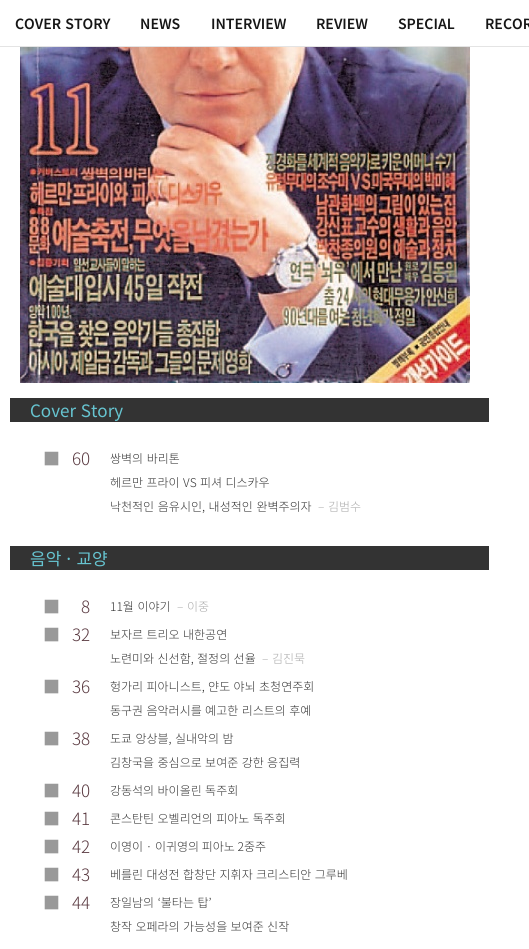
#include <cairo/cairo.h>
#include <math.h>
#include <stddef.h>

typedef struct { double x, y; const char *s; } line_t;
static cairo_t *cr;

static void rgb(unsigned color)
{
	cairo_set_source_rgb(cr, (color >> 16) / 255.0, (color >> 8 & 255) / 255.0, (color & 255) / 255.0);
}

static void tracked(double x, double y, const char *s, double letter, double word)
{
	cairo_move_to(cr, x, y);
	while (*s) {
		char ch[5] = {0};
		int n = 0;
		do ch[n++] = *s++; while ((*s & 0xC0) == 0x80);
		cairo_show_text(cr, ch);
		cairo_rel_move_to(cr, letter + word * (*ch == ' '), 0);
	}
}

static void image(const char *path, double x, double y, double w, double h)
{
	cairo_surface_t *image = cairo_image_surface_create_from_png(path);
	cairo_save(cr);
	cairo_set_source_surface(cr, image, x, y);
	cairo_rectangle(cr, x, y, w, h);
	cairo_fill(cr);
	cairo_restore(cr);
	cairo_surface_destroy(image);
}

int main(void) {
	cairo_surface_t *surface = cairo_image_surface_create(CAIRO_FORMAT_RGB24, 529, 949);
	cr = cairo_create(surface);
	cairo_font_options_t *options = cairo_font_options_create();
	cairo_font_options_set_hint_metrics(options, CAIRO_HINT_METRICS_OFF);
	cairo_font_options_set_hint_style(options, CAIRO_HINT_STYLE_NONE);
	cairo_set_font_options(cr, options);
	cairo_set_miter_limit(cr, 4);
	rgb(0xffffff);
	cairo_paint(cr);
	rgb(0xe4e4e4);
	cairo_rectangle(cr, 0, 46, 529, 1);
	cairo_fill(cr);
	image("img/1.png", 20, 47, 450, 336);
	rgb(0x333333);
	cairo_rectangle(cr, 10, 398, 479, 24);
	cairo_fill(cr);
	cairo_rectangle(cr, 10, 546, 479, 24);
	cairo_fill(cr);
	cairo_select_font_face(cr, "Noto Sans KR SemiBold", CAIRO_FONT_SLANT_NORMAL, CAIRO_FONT_WEIGHT_NORMAL);
	cairo_set_font_size(cr, 14);
	rgb(0x161616);
	tracked(15, 29, "COVER STORY", 0, 1);
	{
		static const line_t items[] = {
			{140, 29, "NEWS"},
			{211, 29, "INTERVIEW"},
			{316, 29, "REVIEW"},
			{398, 29, "SPECIAL"},
			{485, 29, "RECOR"},
		};
		for (size_t i = 0; i < sizeof items / sizeof *items; i++) {
			cairo_move_to(cr, items[i].x, items[i].y);
			cairo_show_text(cr, items[i].s);
		}
	}
	cairo_select_font_face(cr, "Noto Sans KR", CAIRO_FONT_SLANT_NORMAL, CAIRO_FONT_WEIGHT_NORMAL);
	cairo_set_font_size(cr, 17);
	rgb(0x66c4d0);
	tracked(30, 417, "Cover Story", 0, 1);
	cairo_select_font_face(cr, "Noto Sans KR Light", CAIRO_FONT_SLANT_NORMAL, CAIRO_FONT_WEIGHT_NORMAL);
	rgb(0x999999);
	cairo_move_to(cr, 43, 465);
	cairo_show_text(cr, "■");
	rgb(0x5a3a41);
	cairo_move_to(cr, 72, 465);
	cairo_show_text(cr, "60");
	cairo_set_font_size(cr, 12);
	rgb(0x333333);
	tracked(110, 463, "쌍벽의 바리톤", 0, 1);
	tracked(110, 487, "헤르만 프라이 VS 피셔 디스카우", 0, 0.75);
	tracked(110, 511, "낙천적인 음유시인, 내성적인 완벽주의자", 0, 1);
	rgb(0xaaaaaa);
	tracked(318, 511, "– 김범수", 0, 1);
	cairo_select_font_face(cr, "Noto Sans KR", CAIRO_FONT_SLANT_NORMAL, CAIRO_FONT_WEIGHT_NORMAL);
	cairo_set_font_size(cr, 17);
	rgb(0x66c4d0);
	tracked(30, 565, "음악 · 교양", 0, -1);
	cairo_select_font_face(cr, "Noto Sans KR Light", CAIRO_FONT_SLANT_NORMAL, CAIRO_FONT_WEIGHT_NORMAL);
	rgb(0x999999);
	cairo_move_to(cr, 43, 613);
	cairo_show_text(cr, "■");
	rgb(0x5a3a41);
	cairo_move_to(cr, 81, 613);
	cairo_show_text(cr, "8");
	cairo_set_font_size(cr, 12);
	rgb(0x333333);
	tracked(110, 611, "11월 이야기", 0, 1);
	rgb(0xaaaaaa);
	tracked(177, 611, "– 이중", 0, 1);
	cairo_set_font_size(cr, 17);
	rgb(0x999999);
	cairo_move_to(cr, 43, 641);
	cairo_show_text(cr, "■");
	rgb(0x5a3a41);
	cairo_move_to(cr, 72, 641);
	cairo_show_text(cr, "32");
	cairo_set_font_size(cr, 12);
	rgb(0x333333);
	tracked(110, 639, "보자르 트리오 내한공연", 0, 0.75);
	tracked(110, 663, "노련미와 신선함, 절정의 선율", 0, 0.75);
	rgb(0xaaaaaa);
	tracked(262, 663, "– 김진묵", 0, 1);
	cairo_set_font_size(cr, 17);
	rgb(0x999999);
	cairo_move_to(cr, 43, 693);
	cairo_show_text(cr, "■");
	rgb(0x5a3a41);
	cairo_move_to(cr, 72, 693);
	cairo_show_text(cr, "36");
	cairo_set_font_size(cr, 12);
	rgb(0x333333);
	tracked(110, 691, "헝가리 피아니스트, 얀도 야뇌 초청연주회", 0, 0.75);
	tracked(110, 715, "동구권 음악러시를 예고한 리스트의 후예", 0, 0.75);
	cairo_set_font_size(cr, 17);
	rgb(0x999999);
	cairo_move_to(cr, 43, 745);
	cairo_show_text(cr, "■");
	rgb(0x5a3a41);
	cairo_move_to(cr, 72, 745);
	cairo_show_text(cr, "38");
	cairo_set_font_size(cr, 12);
	rgb(0x333333);
	tracked(110, 743, "도쿄 앙상블, 실내악의 밤", 0, 0.75);
	tracked(110, 767, "김창국을 중심으로 보여준 강한 응집력", 0, 0.75);
	cairo_set_font_size(cr, 17);
	rgb(0x999999);
	cairo_move_to(cr, 43, 797);
	cairo_show_text(cr, "■");
	rgb(0x5a3a41);
	cairo_move_to(cr, 72, 797);
	cairo_show_text(cr, "40");
	cairo_set_font_size(cr, 12);
	rgb(0x333333);
	tracked(110, 795, "강동석의 바이올린 독주회", 0, 0.75);
	cairo_set_font_size(cr, 17);
	rgb(0x999999);
	cairo_move_to(cr, 43, 825);
	cairo_show_text(cr, "■");
	rgb(0x5a3a41);
	cairo_move_to(cr, 72, 825);
	cairo_show_text(cr, "41");
	cairo_set_font_size(cr, 12);
	rgb(0x333333);
	tracked(110, 823, "콘스탄틴 오벨리언의 피아노 독주회", 0, 0.75);
	cairo_set_font_size(cr, 17);
	rgb(0x999999);
	cairo_move_to(cr, 43, 853);
	cairo_show_text(cr, "■");
	rgb(0x5a3a41);
	cairo_move_to(cr, 72, 853);
	cairo_show_text(cr, "42");
	cairo_set_font_size(cr, 12);
	rgb(0x333333);
	cairo_move_to(cr, 110, 851);
	cairo_show_text(cr, "이영이 · 이귀영의 피아노 2중주");
	cairo_set_font_size(cr, 17);
	rgb(0x999999);
	cairo_move_to(cr, 43, 881);
	cairo_show_text(cr, "■");
	rgb(0x5a3a41);
	cairo_move_to(cr, 72, 881);
	cairo_show_text(cr, "43");
	cairo_set_font_size(cr, 12);
	rgb(0x333333);
	tracked(110, 879, "베를린 대성전 합창단 지휘자 크리스티안 그루베", 0, 0.75);
	cairo_set_font_size(cr, 17);
	rgb(0x999999);
	cairo_move_to(cr, 43, 909);
	cairo_show_text(cr, "■");
	rgb(0x5a3a41);
	cairo_move_to(cr, 72, 909);
	cairo_show_text(cr, "44");
	cairo_set_font_size(cr, 12);
	rgb(0x333333);
	tracked(110, 907, "장일남의 ‘불타는 탑’", 0, 1);
	tracked(110, 931, "창작 오페라의 가능성을 보여준 신작", 0, 0.75);
	cairo_surface_write_to_png(surface, "page.png");
	cairo_font_options_destroy(options);
	cairo_destroy(cr);
	cairo_surface_destroy(surface);
	return 0;
}
